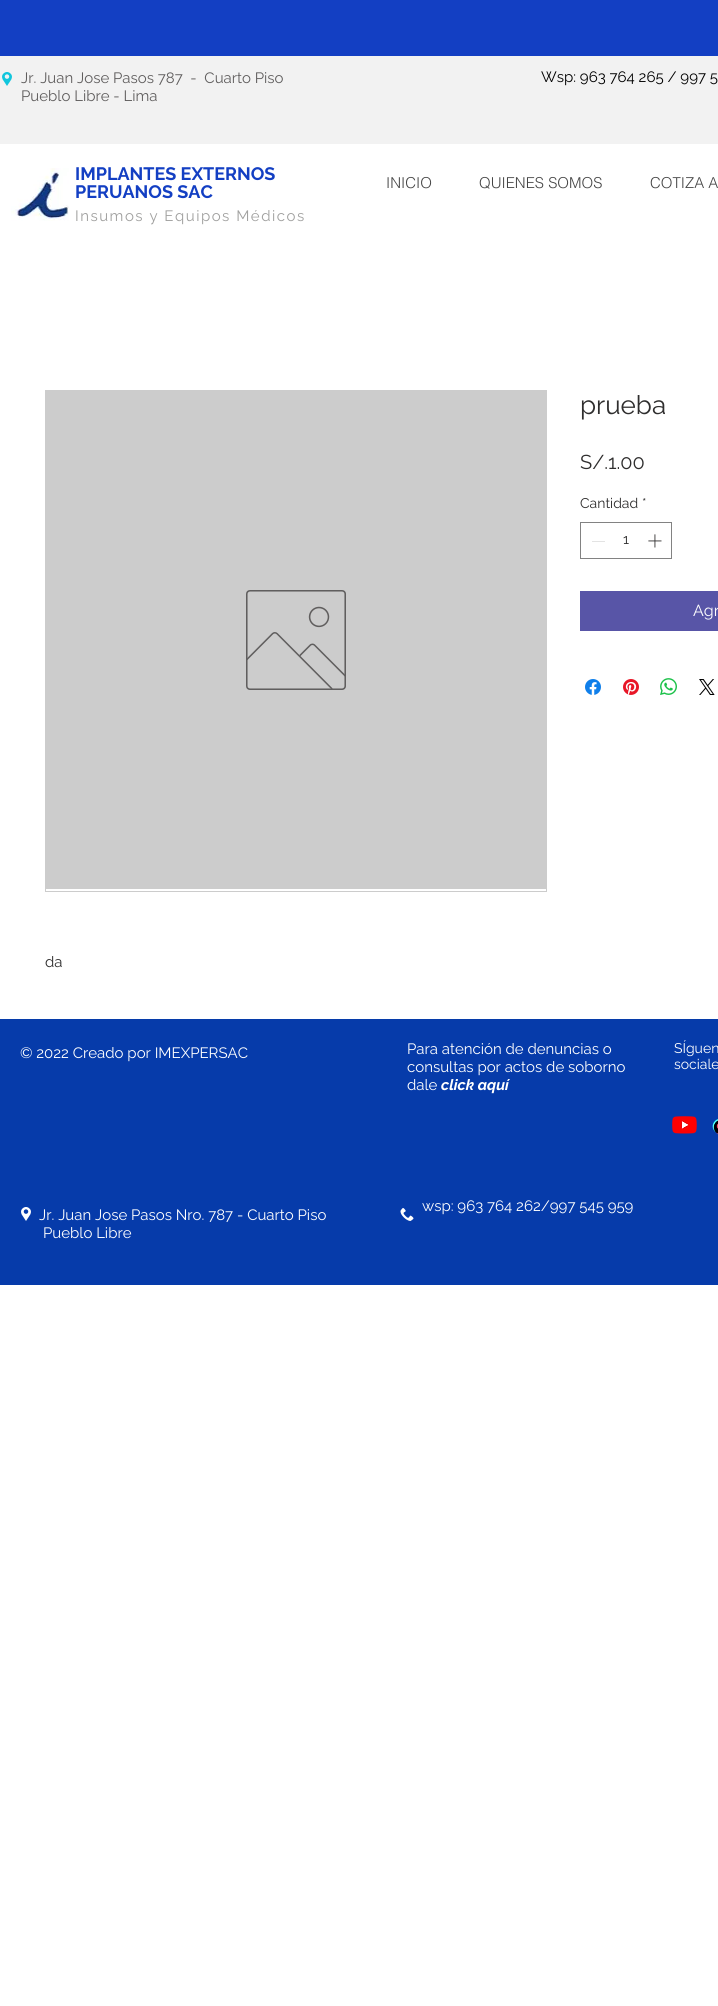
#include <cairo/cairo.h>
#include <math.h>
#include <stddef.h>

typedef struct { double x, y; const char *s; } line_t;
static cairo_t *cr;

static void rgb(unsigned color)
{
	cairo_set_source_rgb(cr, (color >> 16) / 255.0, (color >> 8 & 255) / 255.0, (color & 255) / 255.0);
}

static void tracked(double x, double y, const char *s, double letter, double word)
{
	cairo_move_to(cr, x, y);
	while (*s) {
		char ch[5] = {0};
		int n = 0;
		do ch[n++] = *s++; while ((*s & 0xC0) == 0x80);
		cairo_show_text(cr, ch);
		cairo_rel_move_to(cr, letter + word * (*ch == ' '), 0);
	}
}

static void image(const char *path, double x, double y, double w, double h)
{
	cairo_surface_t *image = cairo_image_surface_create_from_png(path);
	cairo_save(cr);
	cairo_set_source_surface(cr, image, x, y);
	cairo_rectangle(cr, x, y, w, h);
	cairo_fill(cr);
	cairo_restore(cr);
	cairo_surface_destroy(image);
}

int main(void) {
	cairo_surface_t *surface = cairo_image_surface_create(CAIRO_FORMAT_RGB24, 718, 2006);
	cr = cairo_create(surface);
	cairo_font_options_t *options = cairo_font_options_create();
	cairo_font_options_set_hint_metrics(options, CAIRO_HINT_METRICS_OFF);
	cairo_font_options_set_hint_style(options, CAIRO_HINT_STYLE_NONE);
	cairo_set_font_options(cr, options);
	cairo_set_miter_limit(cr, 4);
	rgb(0xffffff);
	cairo_paint(cr);
	rgb(0x133fc3);
	cairo_rectangle(cr, 0, 0, 718, 56);
	cairo_fill(cr);
	rgb(0xf2f2f2);
	cairo_rectangle(cr, 0, 56, 718, 88);
	cairo_fill(cr);
	image("img/1.png", 2, 72, 10, 14);
	image("img/2.png", 11, 168, 58, 53);
	cairo_rectangle(cr, 580.5, 522.5, 91, 36);
	rgb(0x828282);
	cairo_set_line_width(cr, 1);
	cairo_stroke(cr);
	rgb(0xe3e3e3);
	cairo_rectangle(cr, 592, 541, 13, 1);
	cairo_fill(cr);
	image("img/3.png", 648, 534, 14, 14);
	rgb(0x5855a7);
	cairo_rectangle(cr, 580, 591, 138, 40);
	cairo_fill(cr);
	image("img/4.png", 585, 679, 16, 16);
	image("img/5.png", 623, 679, 16, 16);
	image("img/6.png", 660, 678, 17, 17);
	image("img/7.png", 699, 679, 16, 16);
	cairo_rectangle(cr, 45.5, 390.5, 501, 501);
	rgb(0xcccccc);
	cairo_stroke(cr);
	cairo_rectangle(cr, 46, 391, 500, 498);
	cairo_fill(cr);
	image("img/8.png", 246, 590, 100, 100);
	rgb(0x063baa);
	cairo_rectangle(cr, 0, 1019, 718, 266);
	cairo_fill(cr);
	image("img/9.png", 672, 1116, 25, 18);
	image("img/10.png", 712, 1119, 6, 15);
	image("img/11.png", 21, 1207, 10, 14);
	image("img/12.png", 400, 1208, 14, 13);
	cairo_select_font_face(cr, "Raleway", CAIRO_FONT_SLANT_NORMAL, CAIRO_FONT_WEIGHT_NORMAL);
	cairo_set_font_size(cr, 15);
	rgb(0x605e5e);
	cairo_move_to(cr, 21, 83);
	cairo_show_text(cr, "Jr. Juan Jose Pasos 787  -  Cuarto Piso");
	cairo_move_to(cr, 21, 101);
	cairo_show_text(cr, "Pueblo Libre - Lima");
	rgb(0x000000);
	cairo_move_to(cr, 541, 82);
	cairo_show_text(cr, "Wsp: 963 764 265 / 997 5");
	cairo_select_font_face(cr, "Raleway", CAIRO_FONT_SLANT_NORMAL, CAIRO_FONT_WEIGHT_BOLD);
	cairo_set_font_size(cr, 18);
	rgb(0x133fc3);
	cairo_move_to(cr, 75, 180);
	cairo_show_text(cr, "IMPLANTES EXTERNOS");
	cairo_move_to(cr, 75, 198);
	cairo_show_text(cr, "PERUANOS SAC");
	cairo_select_font_face(cr, "helvetica Light", CAIRO_FONT_SLANT_NORMAL, CAIRO_FONT_WEIGHT_NORMAL);
	cairo_set_font_size(cr, 15);
	rgb(0x444444);
	{
		static const line_t items[] = {
			{386, 188, "INICIO"},
			{479, 188, "QUIENES SOMOS"},
			{650, 188, "COTIZA A"},
		};
		for (size_t i = 0; i < sizeof items / sizeof *items; i++) {
			cairo_move_to(cr, items[i].x, items[i].y);
			cairo_show_text(cr, items[i].s);
		}
	}
	cairo_select_font_face(cr, "Raleway", CAIRO_FONT_SLANT_NORMAL, CAIRO_FONT_WEIGHT_NORMAL);
	rgb(0xa0a09f);
	tracked(75, 221, "Insumos y Equipos Médicos", 1.5, 0);
	cairo_set_font_size(cr, 26);
	rgb(0x2f2e2e);
	cairo_move_to(cr, 580, 414);
	cairo_show_text(cr, "prueba");
	cairo_set_font_size(cr, 20);
	cairo_move_to(cr, 580, 469);
	cairo_show_text(cr, "S/.1.00");
	cairo_set_font_size(cr, 14);
	{
		static const line_t items[] = {
			{580, 508, "Cantidad"},
			{642, 508, "*"},
			{623, 544, "1"},
		};
		for (size_t i = 0; i < sizeof items / sizeof *items; i++) {
			cairo_move_to(cr, items[i].x, items[i].y);
			cairo_show_text(cr, items[i].s);
		}
	}
	cairo_set_font_size(cr, 16);
	rgb(0xffffff);
	cairo_move_to(cr, 693, 616);
	cairo_show_text(cr, "Agr");
	cairo_set_font_size(cr, 15);
	rgb(0x2f2e2e);
	cairo_move_to(cr, 45, 967);
	cairo_show_text(cr, "da");
	rgb(0xffffff);
	{
		static const line_t items[] = {
			{20, 1058, "© 2022 Creado por IMEXPERSAC"},
			{407, 1054, "Para atención de denuncias o"},
			{407, 1072, "consultas por actos de soborno"},
			{407, 1090, "dale"},
		};
		for (size_t i = 0; i < sizeof items / sizeof *items; i++) {
			cairo_move_to(cr, items[i].x, items[i].y);
			cairo_show_text(cr, items[i].s);
		}
	}
	cairo_select_font_face(cr, "Raleway", CAIRO_FONT_SLANT_ITALIC, CAIRO_FONT_WEIGHT_BOLD);
	cairo_move_to(cr, 441, 1090);
	cairo_show_text(cr, "click aquí");
	cairo_select_font_face(cr, "Raleway", CAIRO_FONT_SLANT_NORMAL, CAIRO_FONT_WEIGHT_NORMAL);
	cairo_set_font_size(cr, 14);
	cairo_move_to(cr, 674, 1053);
	cairo_show_text(cr, "SÍguen");
	cairo_move_to(cr, 674, 1069);
	cairo_show_text(cr, "sociale");
	cairo_set_font_size(cr, 15);
	{
		static const line_t items[] = {
			{39, 1220, "Jr. Juan Jose Pasos Nro. 787 - Cuarto Piso"},
			{43, 1238, "Pueblo Libre"},
			{422, 1211, "wsp: 963 764 262/997 545 959"},
		};
		for (size_t i = 0; i < sizeof items / sizeof *items; i++) {
			cairo_move_to(cr, items[i].x, items[i].y);
			cairo_show_text(cr, items[i].s);
		}
	}
	cairo_surface_write_to_png(surface, "page.png");
	cairo_font_options_destroy(options);
	cairo_destroy(cr);
	cairo_surface_destroy(surface);
	return 0;
}
